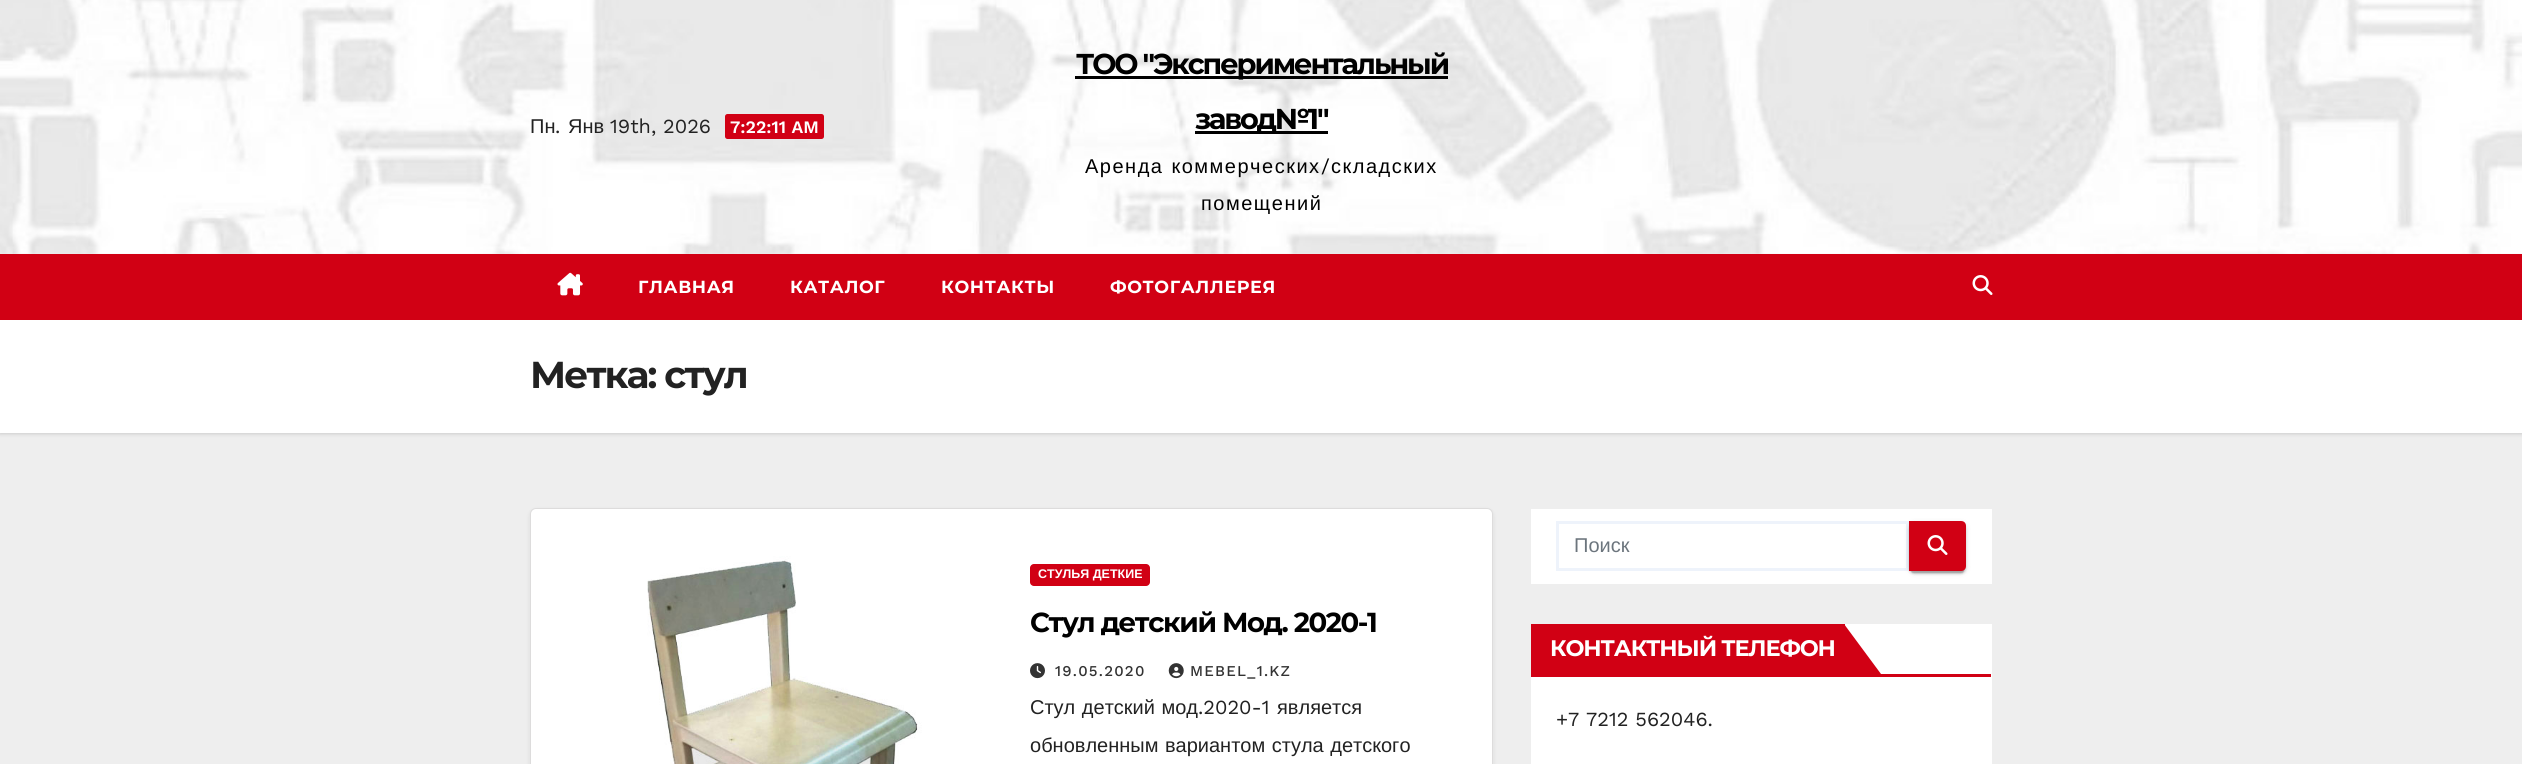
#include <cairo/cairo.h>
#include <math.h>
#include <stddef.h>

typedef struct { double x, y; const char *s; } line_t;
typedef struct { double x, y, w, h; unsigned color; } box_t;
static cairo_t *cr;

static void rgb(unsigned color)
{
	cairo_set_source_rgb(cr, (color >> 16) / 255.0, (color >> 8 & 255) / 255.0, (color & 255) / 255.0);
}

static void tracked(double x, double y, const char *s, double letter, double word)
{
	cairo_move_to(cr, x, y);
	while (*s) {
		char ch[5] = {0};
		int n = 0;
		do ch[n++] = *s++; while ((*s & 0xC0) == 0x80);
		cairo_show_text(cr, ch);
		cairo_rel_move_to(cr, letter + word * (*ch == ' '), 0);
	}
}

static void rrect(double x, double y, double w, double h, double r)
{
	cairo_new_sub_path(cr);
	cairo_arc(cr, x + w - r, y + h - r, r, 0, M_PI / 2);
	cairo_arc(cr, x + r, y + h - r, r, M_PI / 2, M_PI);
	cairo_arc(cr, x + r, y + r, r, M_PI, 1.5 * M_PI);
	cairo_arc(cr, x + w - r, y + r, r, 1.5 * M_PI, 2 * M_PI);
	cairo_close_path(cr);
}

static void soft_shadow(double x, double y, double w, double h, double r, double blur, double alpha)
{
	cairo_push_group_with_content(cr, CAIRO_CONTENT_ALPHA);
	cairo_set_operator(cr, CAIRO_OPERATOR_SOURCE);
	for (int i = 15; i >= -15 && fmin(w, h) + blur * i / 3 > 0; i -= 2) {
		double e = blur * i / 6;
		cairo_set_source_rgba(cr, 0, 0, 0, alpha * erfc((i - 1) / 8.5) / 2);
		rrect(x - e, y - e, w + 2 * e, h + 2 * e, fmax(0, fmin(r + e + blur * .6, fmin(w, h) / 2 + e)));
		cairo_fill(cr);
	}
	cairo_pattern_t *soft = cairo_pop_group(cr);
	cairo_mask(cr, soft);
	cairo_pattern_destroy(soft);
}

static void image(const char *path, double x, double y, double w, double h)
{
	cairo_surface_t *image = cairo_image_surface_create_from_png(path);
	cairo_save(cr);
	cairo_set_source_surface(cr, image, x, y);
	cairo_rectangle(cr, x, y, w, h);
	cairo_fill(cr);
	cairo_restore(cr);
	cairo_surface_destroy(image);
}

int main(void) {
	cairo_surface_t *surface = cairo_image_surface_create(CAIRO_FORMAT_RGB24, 2522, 764);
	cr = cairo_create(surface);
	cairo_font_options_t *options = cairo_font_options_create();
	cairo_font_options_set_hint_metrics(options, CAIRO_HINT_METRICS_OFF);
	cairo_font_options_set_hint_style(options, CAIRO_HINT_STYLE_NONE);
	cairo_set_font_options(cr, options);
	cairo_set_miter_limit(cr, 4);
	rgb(0xeeeeee);
	cairo_paint(cr);
	image("img/1.png", 0, 0, 2522, 254);
	rgb(0xd10014);
	rrect(725, 114, 99, 25, 2.5);
	cairo_fill(cr);
	rgb(0x000000);
	cairo_rectangle(cr, 1075, 76, 373, 3);
	cairo_fill(cr);
	cairo_rectangle(cr, 1195, 131, 133, 3);
	cairo_fill(cr);
	rgb(0x000000);
	soft_shadow(0, 321, 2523, 113, 0, 2, 0.15);
	rgb(0xd10014);
	cairo_rectangle(cr, 0, 254, 2522, 66);
	cairo_fill(cr);
	image("img/2.png", 557, 272, 26, 24);
	image("img/3.png", 1972, 275, 21, 20);
	rgb(0xffffff);
	cairo_rectangle(cr, 0, 320, 2522, 113);
	cairo_fill(cr);
	rgb(0x000000);
	soft_shadow(530, 510, 963, 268, 6, 2.5, 0.08);
	rgb(0xffffff);
	rrect(530.5, 508.5, 962, 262, 5.5);
	cairo_fill_preserve(cr);
	rgb(0xdddcdc);
	cairo_set_line_width(cr, 1);
	cairo_stroke(cr);
	image("img/4.png", 550, 556, 455, 208);
	rgb(0xd10014);
	rrect(1030, 564, 120, 22, 4);
	cairo_fill(cr);
	image("img/5.png", 1030, 663, 15, 16);
	image("img/6.png", 1168, 663, 16, 16);
	rgb(0xffffff);
	cairo_rectangle(cr, 1531, 509, 461, 75);
	cairo_fill(cr);
	cairo_rectangle(cr, 1557.5, 522.5, 350, 47);
	rgb(0xeef3fb);
	cairo_set_line_width(cr, 3);
	cairo_stroke(cr);
	rgb(0x000000);
	soft_shadow(1909, 523, 57, 50, 5, 3, 0.12);
	soft_shadow(1911, 528, 53, 45, 2.5, 0.5, 0.2);
	soft_shadow(1909, 524, 57, 50, 5, 1, 0.14);
	rgb(0xd10014);
	cairo_new_path(cr);
	cairo_move_to(cr, 1909, 521);
	cairo_line_to(cr, 1961, 521);
	cairo_curve_to(cr, 1964, 521, 1966, 523, 1966, 526);
	cairo_line_to(cr, 1966, 566);
	cairo_curve_to(cr, 1966, 569, 1964, 571, 1961, 571);
	cairo_line_to(cr, 1909, 571);
	cairo_close_path(cr);
	cairo_fill(cr);
	image("img/3.png", 1927, 535, 21, 20);
	{
		static const box_t items[] = {
			{1531, 624, 461, 140, 0xffffff},
			{1531, 674, 460, 3, 0xd10014},
			{1531, 624, 314, 50, 0xd10014},
		};
		for (size_t i = 0; i < sizeof items / sizeof *items; i++) {
			rgb(items[i].color);
			cairo_rectangle(cr, items[i].x, items[i].y, items[i].w, items[i].h);
			cairo_fill(cr);
		}
	}
	cairo_new_path(cr);
	cairo_move_to(cr, 1844, 674);
	cairo_line_to(cr, 1844, 624);
	cairo_line_to(cr, 1881, 674);
	cairo_close_path(cr);
	cairo_fill(cr);
	cairo_select_font_face(cr, "Liberation Sans", CAIRO_FONT_SLANT_NORMAL, CAIRO_FONT_WEIGHT_NORMAL);
	cairo_set_font_size(cr, 20);
	rgb(0x222222);
	cairo_move_to(cr, 530, 133);
	cairo_show_text(cr, "Пн");
	cairo_select_font_face(cr, "Work Sans", CAIRO_FONT_SLANT_NORMAL, CAIRO_FONT_WEIGHT_NORMAL);
	cairo_move_to(cr, 555, 133);
	cairo_show_text(cr, ".");
	cairo_select_font_face(cr, "Liberation Sans", CAIRO_FONT_SLANT_NORMAL, CAIRO_FONT_WEIGHT_NORMAL);
	cairo_move_to(cr, 568, 133);
	cairo_show_text(cr, "Янв");
	cairo_select_font_face(cr, "Work Sans", CAIRO_FONT_SLANT_NORMAL, CAIRO_FONT_WEIGHT_NORMAL);
	cairo_move_to(cr, 610, 133);
	cairo_show_text(cr, "19th, 2026");
	cairo_select_font_face(cr, "Work Sans SemiBold", CAIRO_FONT_SLANT_NORMAL, CAIRO_FONT_WEIGHT_NORMAL);
	cairo_set_font_size(cr, 17.5);
	rgb(0xffffff);
	cairo_move_to(cr, 730, 133);
	cairo_show_text(cr, "7:22:11 AM");
	cairo_select_font_face(cr, "Montserrat", CAIRO_FONT_SLANT_NORMAL, CAIRO_FONT_WEIGHT_BOLD);
	cairo_set_font_size(cr, 28.75);
	rgb(0x000000);
	tracked(1076, 74, "ТОО \"Экспериментальный", -2.1, 0);
	tracked(1195, 129, "завод№1\"", -2.1, 0);
	cairo_select_font_face(cr, "Liberation Sans", CAIRO_FONT_SLANT_NORMAL, CAIRO_FONT_WEIGHT_NORMAL);
	cairo_set_font_size(cr, 20);
	tracked(1085, 173, "Аренда коммерческих", 1.5, 1);
	cairo_select_font_face(cr, "Work Sans", CAIRO_FONT_SLANT_NORMAL, CAIRO_FONT_WEIGHT_NORMAL);
	tracked(1321, 173, "/", 1.5, 0);
	cairo_select_font_face(cr, "Liberation Sans", CAIRO_FONT_SLANT_NORMAL, CAIRO_FONT_WEIGHT_NORMAL);
	tracked(1331, 173, "складских", 1.5, 0);
	tracked(1201, 210, "помещений", 1.5, 0);
	cairo_select_font_face(cr, "Montserrat", CAIRO_FONT_SLANT_NORMAL, CAIRO_FONT_WEIGHT_BOLD);
	cairo_set_font_size(cr, 17.5);
	rgb(0xffffff);
	{
		static const line_t items[] = {
			{638, 293, "ГЛАВНАЯ"},
			{790, 293, "КАТАЛОГ"},
			{941, 293, "КОНТАКТЫ"},
			{1110, 293, "ФОТОГАЛЛЕРЕЯ"},
		};
		for (size_t i = 0; i < sizeof items / sizeof *items; i++) {
			tracked(items[i].x, items[i].y, items[i].s, 0.6, 0);
		}
	}
	cairo_set_font_size(cr, 37.5);
	rgb(0x222222);
	tracked(530, 388, "Метка: стул", -1.9, 0);
	cairo_select_font_face(cr, "Liberation Sans", CAIRO_FONT_SLANT_NORMAL, CAIRO_FONT_WEIGHT_BOLD);
	cairo_set_font_size(cr, 12.5);
	rgb(0xffffff);
	cairo_move_to(cr, 1038, 578);
	cairo_show_text(cr, "СТУЛЬЯ ДЕТКИЕ");
	cairo_select_font_face(cr, "Montserrat", CAIRO_FONT_SLANT_NORMAL, CAIRO_FONT_WEIGHT_BOLD);
	cairo_set_font_size(cr, 27.5);
	rgb(0x000000);
	tracked(1030, 632, "Стул детский Мод. 2020-1", -1.4, 0);
	cairo_select_font_face(cr, "Work Sans Medium", CAIRO_FONT_SLANT_NORMAL, CAIRO_FONT_WEIGHT_NORMAL);
	cairo_set_font_size(cr, 15);
	rgb(0x333333);
	tracked(1055, 676, "19.05.2020", 1.25, 0);
	tracked(1190, 676, "MEBEL_1.KZ", 1.25, 0);
	cairo_select_font_face(cr, "Liberation Sans", CAIRO_FONT_SLANT_NORMAL, CAIRO_FONT_WEIGHT_NORMAL);
	cairo_set_font_size(cr, 20);
	rgb(0x222222);
	tracked(1030, 714, "Стул детский мод", 0, 1);
	cairo_select_font_face(cr, "Work Sans", CAIRO_FONT_SLANT_NORMAL, CAIRO_FONT_WEIGHT_NORMAL);
	cairo_move_to(cr, 1198, 714);
	cairo_show_text(cr, ".2020-1");
	cairo_select_font_face(cr, "Liberation Sans", CAIRO_FONT_SLANT_NORMAL, CAIRO_FONT_WEIGHT_NORMAL);
	cairo_move_to(cr, 1277, 714);
	cairo_show_text(cr, "является");
	tracked(1030, 752, "обновленным вариантом стула детского", 0, 1);
	rgb(0x6c757d);
	cairo_move_to(cr, 1574, 552);
	cairo_show_text(cr, "Поиск");
	cairo_select_font_face(cr, "Montserrat", CAIRO_FONT_SLANT_NORMAL, CAIRO_FONT_WEIGHT_BOLD);
	cairo_set_font_size(cr, 22.5);
	rgb(0xffffff);
	tracked(1550, 656, "КОНТАКТНЫЙ ТЕЛЕФОН", -1.1, 0);
	cairo_select_font_face(cr, "Work Sans", CAIRO_FONT_SLANT_NORMAL, CAIRO_FONT_WEIGHT_NORMAL);
	cairo_set_font_size(cr, 20);
	rgb(0x222222);
	cairo_move_to(cr, 1556, 726);
	cairo_show_text(cr, "+7 7212 562046.");
	cairo_surface_write_to_png(surface, "page.png");
	cairo_font_options_destroy(options);
	cairo_destroy(cr);
	cairo_surface_destroy(surface);
	return 0;
}
